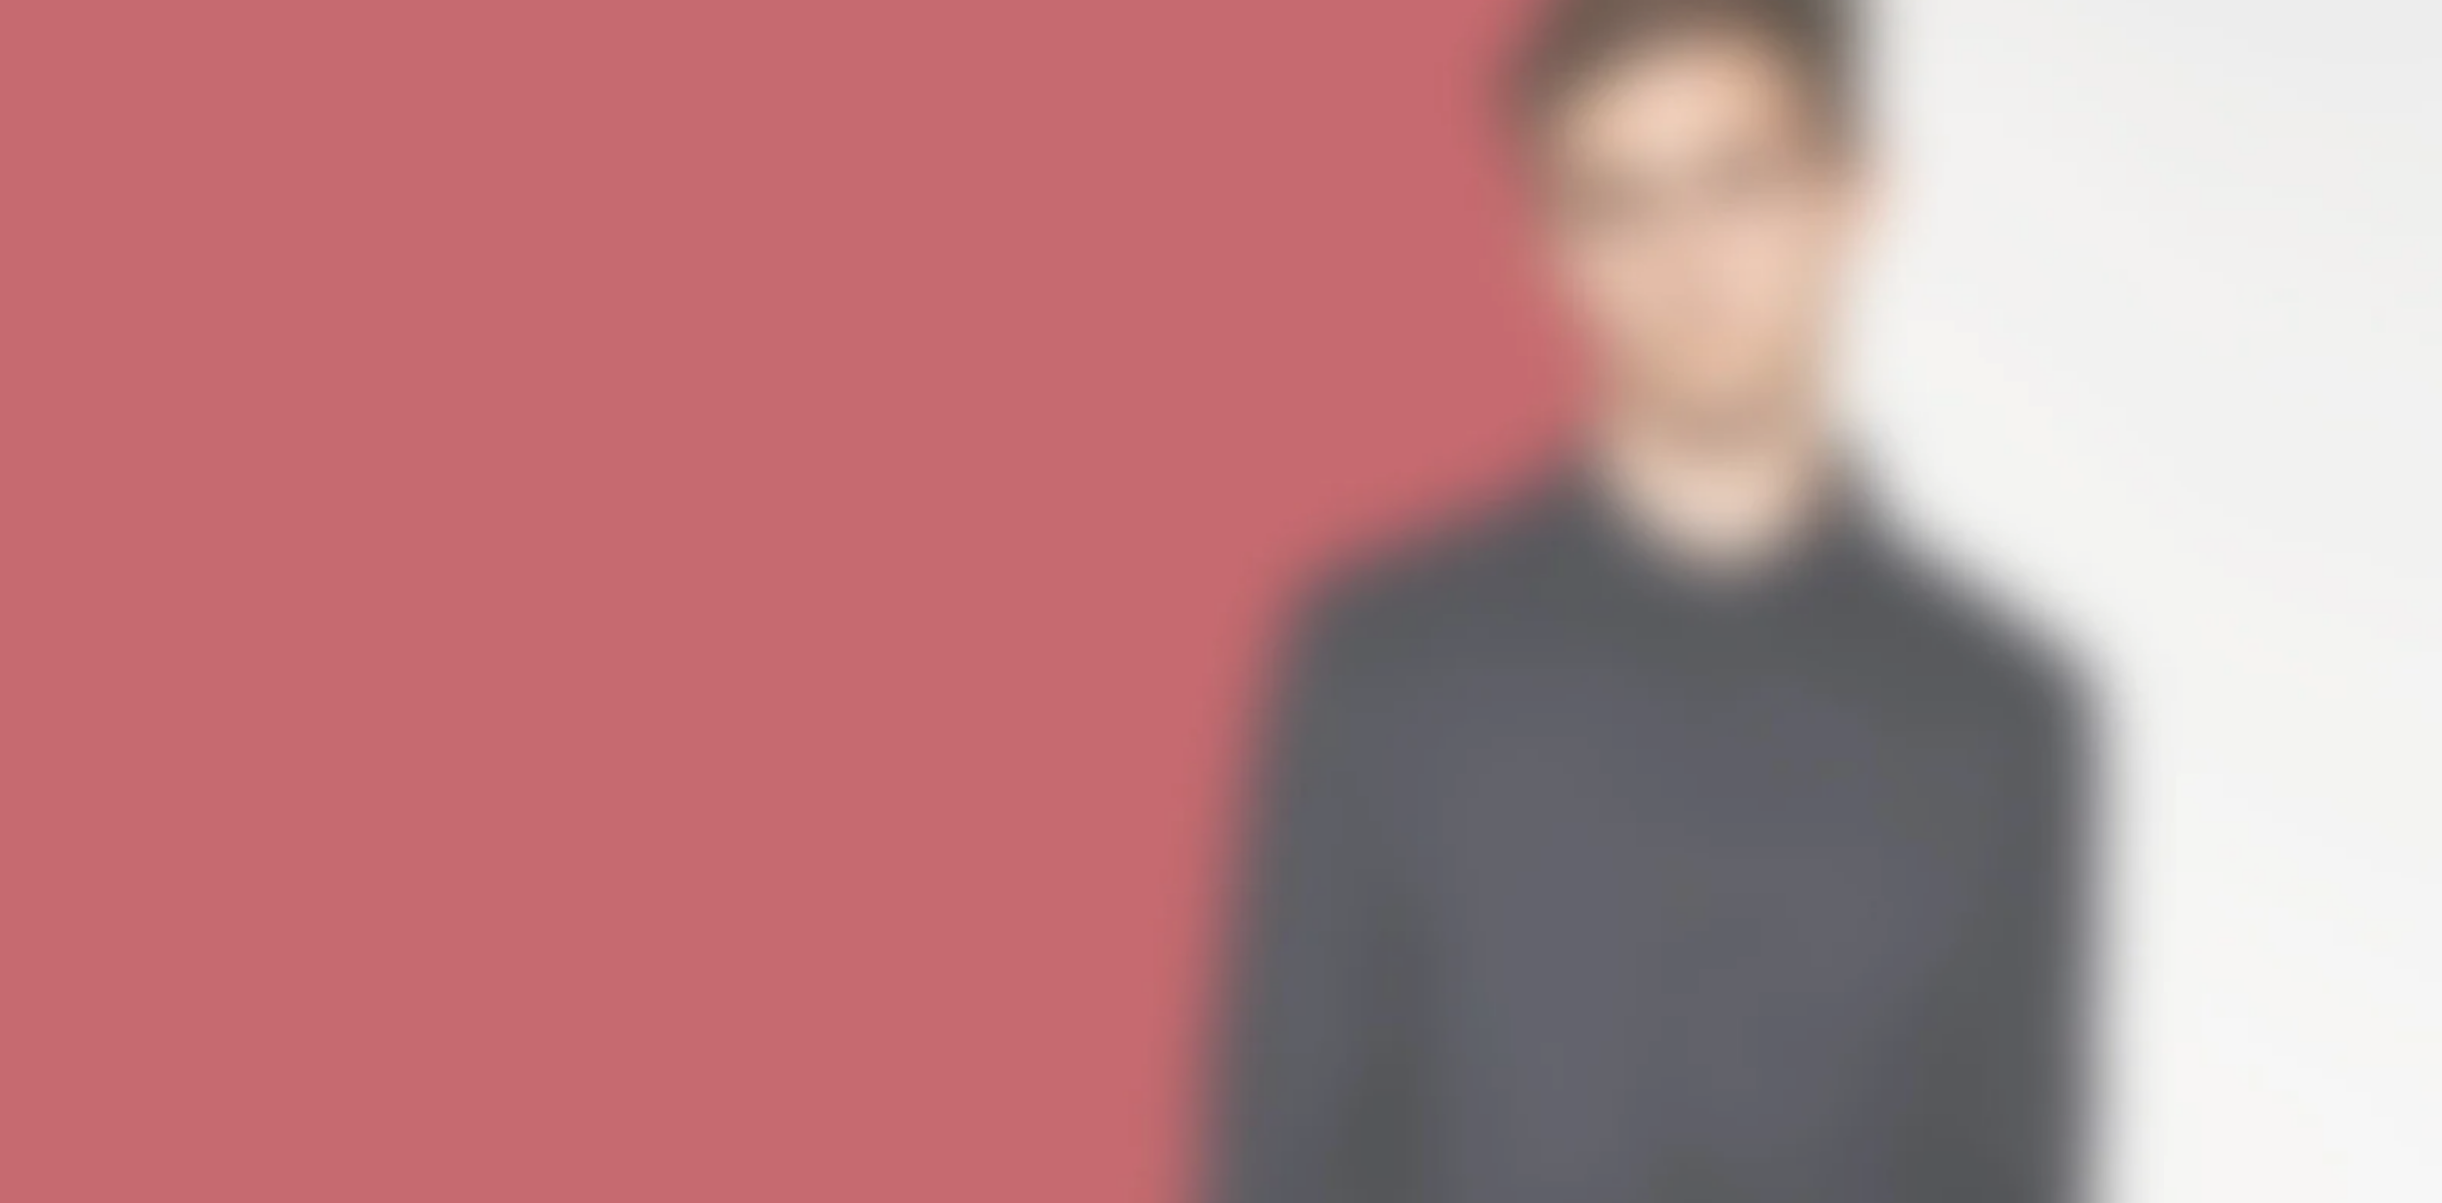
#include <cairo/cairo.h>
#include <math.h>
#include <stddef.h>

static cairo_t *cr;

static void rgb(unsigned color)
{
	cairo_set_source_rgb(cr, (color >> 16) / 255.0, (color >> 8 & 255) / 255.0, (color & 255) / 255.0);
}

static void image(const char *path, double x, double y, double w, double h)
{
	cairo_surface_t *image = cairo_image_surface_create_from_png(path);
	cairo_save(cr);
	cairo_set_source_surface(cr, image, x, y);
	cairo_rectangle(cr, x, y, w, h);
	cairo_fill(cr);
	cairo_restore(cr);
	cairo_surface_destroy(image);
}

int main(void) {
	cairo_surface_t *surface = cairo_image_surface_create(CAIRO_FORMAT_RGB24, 2442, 1203);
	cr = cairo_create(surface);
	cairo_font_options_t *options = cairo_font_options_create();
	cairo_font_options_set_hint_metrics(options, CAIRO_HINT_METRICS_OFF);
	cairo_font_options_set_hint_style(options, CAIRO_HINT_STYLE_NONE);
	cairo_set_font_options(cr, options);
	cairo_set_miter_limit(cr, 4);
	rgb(0xffffff);
	cairo_paint(cr);
	image("img/1.png", 0, 0, 2442, 1203);
	cairo_surface_write_to_png(surface, "page.png");
	cairo_font_options_destroy(options);
	cairo_destroy(cr);
	cairo_surface_destroy(surface);
	return 0;
}
